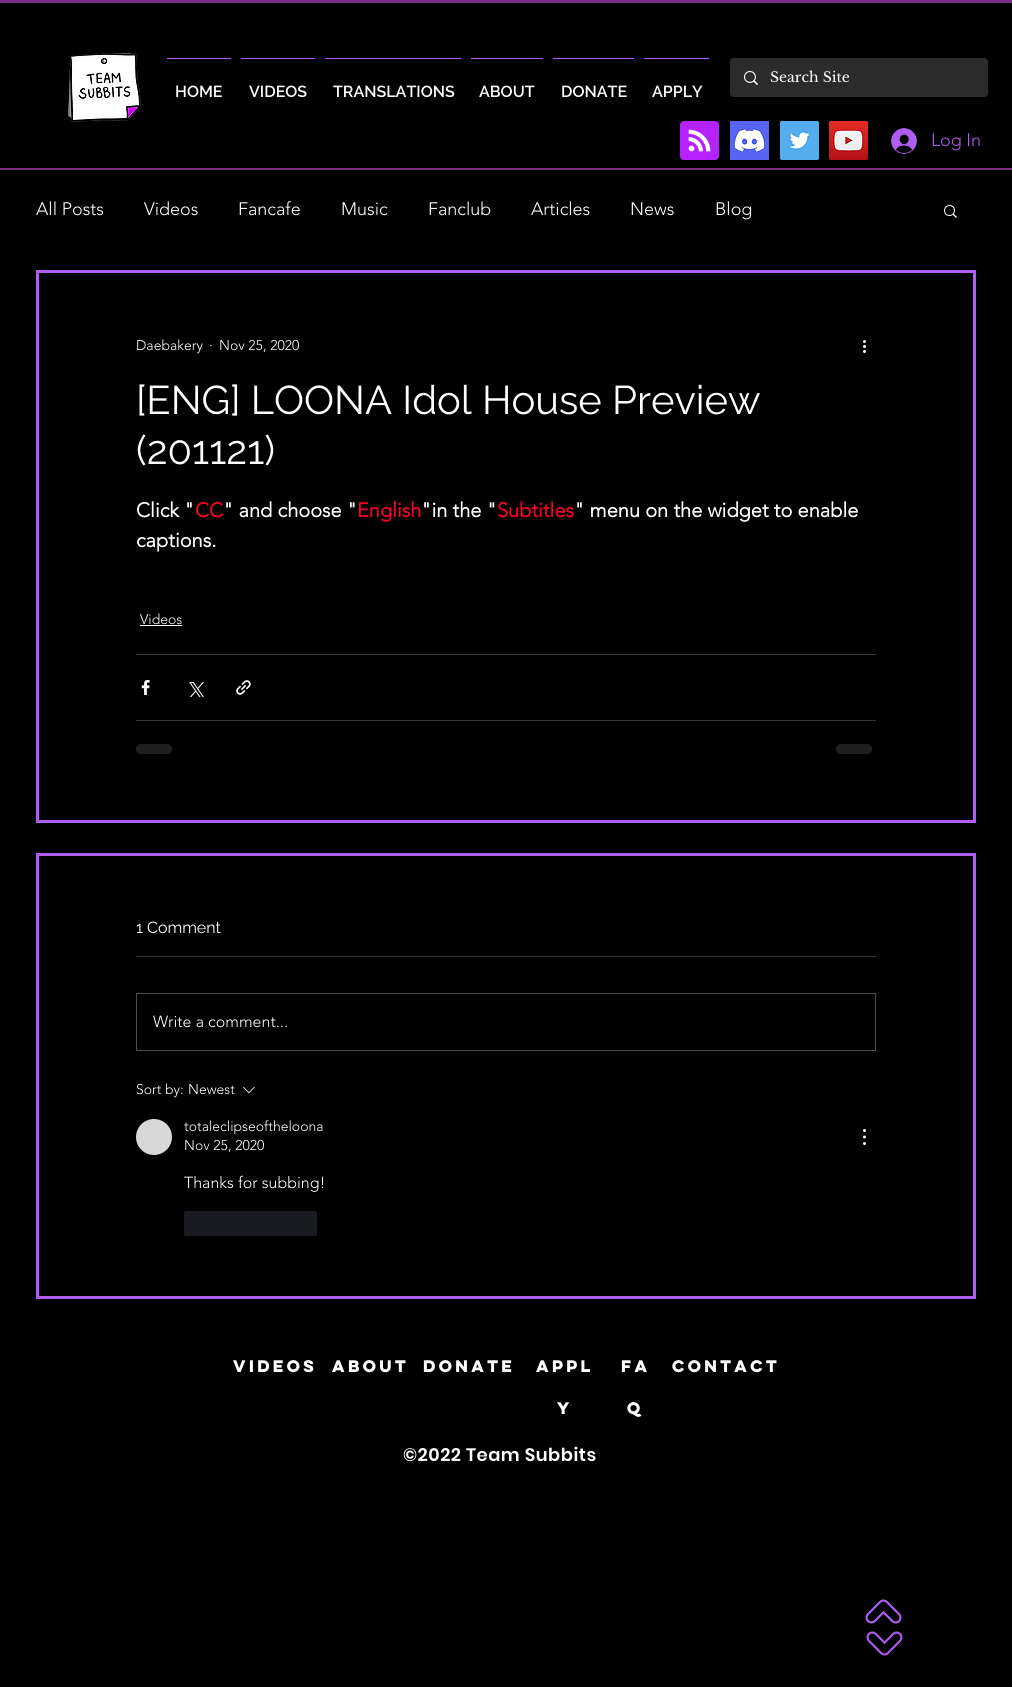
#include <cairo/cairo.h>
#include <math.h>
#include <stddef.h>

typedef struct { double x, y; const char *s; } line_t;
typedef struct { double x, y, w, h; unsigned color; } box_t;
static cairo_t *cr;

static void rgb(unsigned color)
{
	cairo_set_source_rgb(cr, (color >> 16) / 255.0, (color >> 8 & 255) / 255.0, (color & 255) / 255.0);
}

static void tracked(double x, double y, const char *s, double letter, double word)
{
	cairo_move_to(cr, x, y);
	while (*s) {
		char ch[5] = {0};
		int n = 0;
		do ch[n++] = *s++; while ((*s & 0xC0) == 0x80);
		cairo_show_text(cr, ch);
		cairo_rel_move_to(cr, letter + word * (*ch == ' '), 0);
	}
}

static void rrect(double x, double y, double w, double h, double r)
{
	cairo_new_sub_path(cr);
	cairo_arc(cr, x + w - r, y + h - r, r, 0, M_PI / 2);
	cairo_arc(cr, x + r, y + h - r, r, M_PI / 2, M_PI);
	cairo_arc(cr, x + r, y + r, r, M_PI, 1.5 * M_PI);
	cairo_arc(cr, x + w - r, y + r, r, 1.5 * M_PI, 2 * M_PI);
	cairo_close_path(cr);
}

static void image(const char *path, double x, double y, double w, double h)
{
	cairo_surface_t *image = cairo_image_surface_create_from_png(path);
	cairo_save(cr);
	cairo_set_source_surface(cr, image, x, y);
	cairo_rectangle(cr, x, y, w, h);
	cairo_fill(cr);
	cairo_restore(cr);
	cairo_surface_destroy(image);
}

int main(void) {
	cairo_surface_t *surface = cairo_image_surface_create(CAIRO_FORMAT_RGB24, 1012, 1687);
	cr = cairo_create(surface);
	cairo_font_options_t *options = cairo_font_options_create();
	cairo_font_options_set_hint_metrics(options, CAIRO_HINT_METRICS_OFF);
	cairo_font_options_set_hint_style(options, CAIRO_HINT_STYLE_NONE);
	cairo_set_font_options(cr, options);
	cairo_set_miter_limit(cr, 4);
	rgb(0x000000);
	cairo_paint(cr);
	rgb(0x7c2e87);
	cairo_rectangle(cr, 0, 0, 1012, 3);
	cairo_fill(cr);
	cairo_rectangle(cr, 0, 168, 1012, 2);
	cairo_fill(cr);
	image("img/1.png", 68, 53, 73, 69);
	rgb(0x2b2b2b);
	rrect(730, 58, 258, 39, 4);
	cairo_fill(cr);
	image("img/2.png", 744, 71, 14, 14);
	{
		static const box_t items[] = {
			{167, 58, 64, 1, 0xb05df3},
			{241, 58, 74, 1, 0xb05df3},
			{325, 58, 136, 1, 0xb05df3},
			{471, 58, 72, 1, 0xb05df3},
			{553, 58, 81, 1, 0xb05df3},
			{644, 58, 65, 1, 0xb05df3},
		};
		for (size_t i = 0; i < sizeof items / sizeof *items; i++) {
			rgb(items[i].color);
			cairo_rectangle(cr, items[i].x, items[i].y, items[i].w, items[i].h);
			cairo_fill(cr);
		}
	}
	image("img/3.png", 680, 121, 39, 39);
	image("img/4.png", 730, 121, 39, 39);
	image("img/5.png", 780, 121, 39, 39);
	image("img/6.png", 829, 121, 39, 39);
	image("img/7.png", 891, 128, 26, 26);
	image("img/8.png", 944, 205, 13, 13);
	cairo_rectangle(cr, 37.5, 271.5, 937, 550);
	cairo_set_line_width(cr, 3);
	cairo_stroke(cr);
	image("img/9.png", 863, 340, 3, 13);
	rgb(0xffffff);
	cairo_rectangle(cr, 140, 625, 42, 1);
	cairo_fill(cr);
	rgb(0x333333);
	cairo_rectangle(cr, 136, 654, 740, 1);
	cairo_fill(cr);
	image("img/10.png", 141, 680, 9, 15);
	image("img/11.png", 189, 682, 15, 15);
	image("img/12.png", 236, 680, 15, 15);
	cairo_rectangle(cr, 136, 720, 740, 1);
	cairo_fill(cr);
	rgb(0x1f1f1f);
	rrect(136, 744, 36, 10, 5);
	cairo_fill(cr);
	rrect(836, 744, 36, 10, 5);
	cairo_fill(cr);
	cairo_rectangle(cr, 37.5, 854.5, 937, 443);
	rgb(0xb05df3);
	cairo_stroke(cr);
	rgb(0x333333);
	cairo_rectangle(cr, 136, 956, 740, 1);
	cairo_fill(cr);
	cairo_rectangle(cr, 136.5, 993.5, 739, 57);
	rgb(0x4d4d4d);
	cairo_set_line_width(cr, 1);
	cairo_stroke(cr);
	image("img/13.png", 243, 1086, 12, 8);
	rgb(0xd8d8d8);
	cairo_arc(cr, 154, 1137, 18, 0, 2 * M_PI);
	cairo_fill(cr);
	image("img/14.png", 863, 1129, 3, 16);
	rgb(0x1b1c21);
	rrect(184, 1211, 133, 25, 2);
	cairo_fill(cr);
	image("img/15.png", 865, 1599, 37, 25);
	image("img/16.png", 866, 1631, 37, 25);
	cairo_select_font_face(cr, "Libre Baskerville", CAIRO_FONT_SLANT_NORMAL, CAIRO_FONT_WEIGHT_NORMAL);
	cairo_set_font_size(cr, 14);
	rgb(0xffffff);
	cairo_move_to(cr, 770, 82);
	cairo_show_text(cr, "Search Site");
	cairo_select_font_face(cr, "Raleway SemiBold", CAIRO_FONT_SLANT_NORMAL, CAIRO_FONT_WEIGHT_NORMAL);
	cairo_set_font_size(cr, 16);
	{
		static const line_t items[] = {
			{175, 97, "HOME"},
			{249, 97, "VIDEOS"},
			{333, 97, "TRANSLATIONS"},
			{479, 97, "ABOUT"},
			{561, 97, "DONATE"},
			{652, 97, "APPLY"},
		};
		for (size_t i = 0; i < sizeof items / sizeof *items; i++) {
			cairo_move_to(cr, items[i].x, items[i].y);
			cairo_show_text(cr, items[i].s);
		}
	}
	cairo_select_font_face(cr, "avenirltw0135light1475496 Light", CAIRO_FONT_SLANT_NORMAL, CAIRO_FONT_WEIGHT_NORMAL);
	cairo_set_font_size(cr, 18);
	rgb(0xb05df3);
	cairo_move_to(cr, 931, 146);
	cairo_show_text(cr, "Log In");
	rgb(0xffffff);
	{
		static const line_t items[] = {
			{36, 215, "All Posts"},
			{144, 215, "Videos"},
			{238, 215, "Fancafe"},
			{341, 215, "Music"},
			{428, 215, "Fanclub"},
			{531, 215, "Articles"},
			{630, 215, "News"},
			{715, 215, "Blog"},
		};
		for (size_t i = 0; i < sizeof items / sizeof *items; i++) {
			cairo_move_to(cr, items[i].x, items[i].y);
			cairo_show_text(cr, items[i].s);
		}
	}
	cairo_set_font_size(cr, 14);
	{
		static const line_t items[] = {
			{136, 350, "Daebakery"},
			{209, 350, "·"},
			{219, 350, "Nov 25, 2020"},
		};
		for (size_t i = 0; i < sizeof items / sizeof *items; i++) {
			cairo_move_to(cr, items[i].x, items[i].y);
			cairo_show_text(cr, items[i].s);
		}
	}
	cairo_select_font_face(cr, "Raleway", CAIRO_FONT_SLANT_NORMAL, CAIRO_FONT_WEIGHT_NORMAL);
	cairo_set_font_size(cr, 40);
	cairo_move_to(cr, 136, 414);
	cairo_show_text(cr, "[ENG] LOONA Idol House Preview");
	cairo_move_to(cr, 136, 464);
	cairo_show_text(cr, "(201121)");
	cairo_select_font_face(cr, "avenirltw0135light1475496", CAIRO_FONT_SLANT_NORMAL, CAIRO_FONT_WEIGHT_BOLD);
	cairo_set_font_size(cr, 20);
	cairo_move_to(cr, 136, 517);
	cairo_show_text(cr, "Click \"");
	rgb(0xfa0027);
	cairo_move_to(cr, 195, 517);
	cairo_show_text(cr, "CC");
	rgb(0xffffff);
	cairo_move_to(cr, 223, 517);
	cairo_show_text(cr, "\" and choose \"");
	rgb(0xfa0027);
	cairo_move_to(cr, 357, 517);
	cairo_show_text(cr, "English");
	rgb(0xffffff);
	cairo_move_to(cr, 421, 517);
	cairo_show_text(cr, "\"in the \"");
	rgb(0xfa0027);
	cairo_move_to(cr, 497, 517);
	cairo_show_text(cr, "Subtitles");
	rgb(0xffffff);
	cairo_move_to(cr, 574, 517);
	cairo_show_text(cr, "\" menu on the widget to enable");
	cairo_move_to(cr, 136, 547);
	cairo_show_text(cr, "captions.");
	cairo_select_font_face(cr, "avenirltw0135light1475496 Light", CAIRO_FONT_SLANT_NORMAL, CAIRO_FONT_WEIGHT_NORMAL);
	cairo_set_font_size(cr, 14);
	cairo_move_to(cr, 140, 624);
	cairo_show_text(cr, "Videos");
	cairo_select_font_face(cr, "Raleway", CAIRO_FONT_SLANT_NORMAL, CAIRO_FONT_WEIGHT_NORMAL);
	cairo_set_font_size(cr, 16);
	cairo_move_to(cr, 136, 933);
	cairo_show_text(cr, "1 Comment");
	cairo_select_font_face(cr, "avenirltw0135light1475496 Light", CAIRO_FONT_SLANT_NORMAL, CAIRO_FONT_WEIGHT_NORMAL);
	cairo_move_to(cr, 153, 1027);
	cairo_show_text(cr, "Write a comment...");
	cairo_set_font_size(cr, 14);
	{
		static const line_t items[] = {
			{136, 1094, "Sort by:"},
			{188, 1094, "Newest"},
			{184, 1131, "totaleclipseoftheloona"},
			{184, 1150, "Nov 25, 2020"},
		};
		for (size_t i = 0; i < sizeof items / sizeof *items; i++) {
			cairo_move_to(cr, items[i].x, items[i].y);
			cairo_show_text(cr, items[i].s);
		}
	}
	cairo_set_font_size(cr, 16);
	cairo_move_to(cr, 184, 1188);
	cairo_show_text(cr, "Thanks for subbing!");
	cairo_select_font_face(cr, "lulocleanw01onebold", CAIRO_FONT_SLANT_NORMAL, CAIRO_FONT_WEIGHT_BOLD);
	cairo_set_font_size(cr, 15);
	{
		static const line_t items[] = {
			{233, 1372, "videos"},
			{332, 1372, "about"},
			{423, 1372, "donate"},
			{536, 1372, "appl"},
			{557, 1414, "y"},
			{621, 1372, "FA"},
			{627, 1414, "Q"},
			{672, 1372, "Contact"},
		};
		for (size_t i = 0; i < sizeof items / sizeof *items; i++) {
			cairo_move_to(cr, items[i].x, items[i].y);
			cairo_show_text(cr, items[i].s);
		}
	}
	cairo_select_font_face(cr, "Poppins SemiBold", CAIRO_FONT_SLANT_NORMAL, CAIRO_FONT_WEIGHT_NORMAL);
	cairo_set_font_size(cr, 18);
	tracked(403, 1461, "©2022 Team Subbits", 0.5, 0);
	cairo_surface_write_to_png(surface, "page.png");
	cairo_font_options_destroy(options);
	cairo_destroy(cr);
	cairo_surface_destroy(surface);
	return 0;
}
